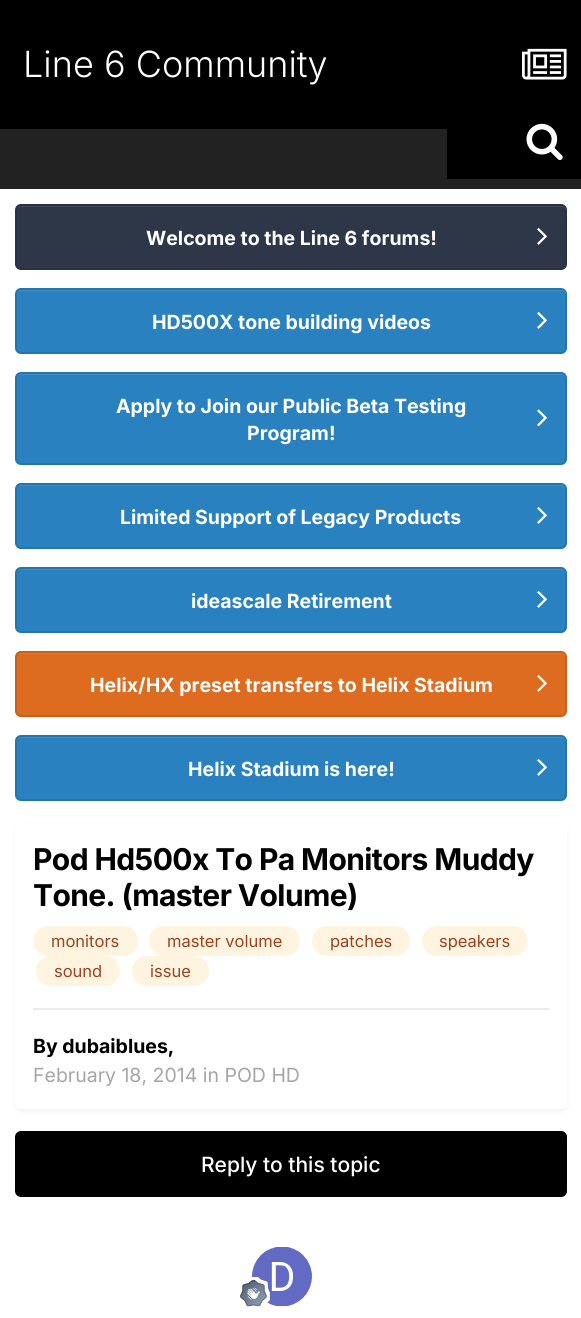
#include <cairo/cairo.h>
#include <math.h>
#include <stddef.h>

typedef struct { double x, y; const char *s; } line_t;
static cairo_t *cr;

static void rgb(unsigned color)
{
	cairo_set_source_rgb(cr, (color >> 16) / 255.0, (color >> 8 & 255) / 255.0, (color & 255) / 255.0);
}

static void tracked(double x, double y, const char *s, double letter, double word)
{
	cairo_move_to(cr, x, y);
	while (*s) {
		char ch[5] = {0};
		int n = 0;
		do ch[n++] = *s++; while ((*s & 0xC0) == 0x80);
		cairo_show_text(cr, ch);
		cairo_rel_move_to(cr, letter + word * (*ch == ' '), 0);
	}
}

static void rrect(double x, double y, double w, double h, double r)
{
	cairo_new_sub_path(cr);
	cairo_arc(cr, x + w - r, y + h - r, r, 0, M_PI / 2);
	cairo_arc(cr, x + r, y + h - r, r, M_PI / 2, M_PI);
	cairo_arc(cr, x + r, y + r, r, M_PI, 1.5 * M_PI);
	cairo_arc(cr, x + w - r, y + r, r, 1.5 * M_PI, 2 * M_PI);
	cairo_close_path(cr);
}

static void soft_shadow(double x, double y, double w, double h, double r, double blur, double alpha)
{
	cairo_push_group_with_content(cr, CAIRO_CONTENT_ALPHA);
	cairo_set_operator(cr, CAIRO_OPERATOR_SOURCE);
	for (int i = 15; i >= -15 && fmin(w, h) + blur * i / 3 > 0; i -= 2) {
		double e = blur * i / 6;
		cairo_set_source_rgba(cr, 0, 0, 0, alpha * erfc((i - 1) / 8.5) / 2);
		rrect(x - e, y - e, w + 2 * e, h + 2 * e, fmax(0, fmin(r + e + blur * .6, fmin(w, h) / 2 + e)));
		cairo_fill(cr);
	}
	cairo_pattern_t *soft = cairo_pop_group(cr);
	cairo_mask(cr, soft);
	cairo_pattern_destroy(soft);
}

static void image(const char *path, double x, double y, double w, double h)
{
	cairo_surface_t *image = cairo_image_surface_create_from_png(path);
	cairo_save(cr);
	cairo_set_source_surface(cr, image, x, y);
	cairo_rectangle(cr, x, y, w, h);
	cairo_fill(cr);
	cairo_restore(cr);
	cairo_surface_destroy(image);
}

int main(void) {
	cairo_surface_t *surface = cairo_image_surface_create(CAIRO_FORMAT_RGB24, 581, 1318);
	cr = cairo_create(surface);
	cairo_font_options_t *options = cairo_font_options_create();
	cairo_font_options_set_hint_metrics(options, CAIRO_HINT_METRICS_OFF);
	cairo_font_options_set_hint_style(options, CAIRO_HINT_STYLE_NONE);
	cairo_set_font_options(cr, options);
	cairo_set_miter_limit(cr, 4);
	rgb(0x222222);
	cairo_paint(cr);
	rgb(0x000000);
	cairo_rectangle(cr, 0, 0, 581, 129);
	cairo_fill(cr);
	cairo_rectangle(cr, 447, 129, 134, 50);
	cairo_fill(cr);
	image("img/1.png", 522, 48, 45, 32);
	image("img/2.png", 526, 123, 37, 37);
	rgb(0xffffff);
	cairo_rectangle(cr, 0, 189, 581, 1129);
	cairo_fill(cr);
	rgb(0x2d3748);
	rrect(15, 204, 552, 66, 6);
	cairo_fill(cr);
	rgb(0x424b5a);
	cairo_new_path(cr);
	cairo_move_to(cr, 21, 207);
	cairo_line_to(cr, 561, 207);
	cairo_curve_to(cr, 563, 207, 566, 209, 566, 212);
	cairo_line_to(cr, 566, 211);
	cairo_curve_to(cr, 566, 208, 564, 206, 561, 206);
	cairo_line_to(cr, 22, 206);
	cairo_curve_to(cr, 20, 206, 19, 207, 18, 208);
	cairo_close_path(cr);
	cairo_fill(cr);
	rrect(16, 205, 550, 64, 5);
	cairo_set_source_rgba(cr, 0, 0, 0, 0.1);
	cairo_stroke(cr);
	image("img/3.png", 537, 228, 10, 17);
	rgb(0x2981bf);
	rrect(15, 288, 552, 66, 6);
	cairo_fill(cr);
	rgb(0x3e8ec5);
	cairo_new_path(cr);
	cairo_move_to(cr, 21, 291);
	cairo_line_to(cr, 561, 291);
	cairo_curve_to(cr, 563, 291, 566, 293, 566, 296);
	cairo_line_to(cr, 566, 295);
	cairo_curve_to(cr, 566, 292, 564, 290, 561, 290);
	cairo_line_to(cr, 22, 290);
	cairo_curve_to(cr, 20, 290, 19, 291, 18, 292);
	cairo_close_path(cr);
	cairo_fill(cr);
	rrect(16, 289, 550, 64, 5);
	cairo_set_source_rgba(cr, 0, 0, 0, 0.1);
	cairo_stroke(cr);
	image("img/4.png", 537, 312, 10, 17);
	rgb(0x2981bf);
	rrect(15, 372, 552, 93, 6);
	cairo_fill(cr);
	rgb(0x3e8ec5);
	cairo_new_path(cr);
	cairo_move_to(cr, 21, 375);
	cairo_line_to(cr, 561, 375);
	cairo_curve_to(cr, 563, 375, 566, 377, 566, 380);
	cairo_line_to(cr, 566, 379);
	cairo_curve_to(cr, 566, 376, 564, 374, 561, 374);
	cairo_line_to(cr, 22, 374);
	cairo_curve_to(cr, 20, 374, 19, 375, 18, 376);
	cairo_close_path(cr);
	cairo_fill(cr);
	rrect(16, 373, 550, 91, 5);
	cairo_set_source_rgba(cr, 0, 0, 0, 0.1);
	cairo_stroke(cr);
	image("img/5.png", 537, 409, 10, 18);
	rgb(0x2981bf);
	rrect(15, 483, 552, 66, 6);
	cairo_fill(cr);
	rgb(0x3e8ec5);
	cairo_new_path(cr);
	cairo_move_to(cr, 21, 486);
	cairo_line_to(cr, 561, 486);
	cairo_curve_to(cr, 563, 486, 566, 488, 566, 490);
	cairo_curve_to(cr, 566, 487, 564, 485, 561, 485);
	cairo_line_to(cr, 22, 485);
	cairo_curve_to(cr, 20, 485, 19, 486, 18, 487);
	cairo_close_path(cr);
	cairo_fill(cr);
	rrect(16, 484, 550, 64, 5);
	cairo_set_source_rgba(cr, 0, 0, 0, 0.1);
	cairo_stroke(cr);
	image("img/4.png", 537, 507, 10, 17);
	rgb(0x2981bf);
	rrect(15, 567, 552, 66, 6);
	cairo_fill(cr);
	rgb(0x3e8ec5);
	cairo_new_path(cr);
	cairo_move_to(cr, 21, 570);
	cairo_line_to(cr, 561, 570);
	cairo_curve_to(cr, 563, 570, 566, 572, 566, 574);
	cairo_curve_to(cr, 566, 571, 564, 569, 561, 569);
	cairo_line_to(cr, 22, 569);
	cairo_curve_to(cr, 20, 569, 19, 570, 18, 571);
	cairo_close_path(cr);
	cairo_fill(cr);
	rrect(16, 568, 550, 64, 5);
	cairo_set_source_rgba(cr, 0, 0, 0, 0.1);
	cairo_stroke(cr);
	image("img/4.png", 537, 591, 10, 17);
	rgb(0xdd6b20);
	rrect(15, 651, 552, 66, 6);
	cairo_fill(cr);
	rgb(0xe07a36);
	cairo_new_path(cr);
	cairo_move_to(cr, 21, 654);
	cairo_line_to(cr, 561, 654);
	cairo_curve_to(cr, 563, 654, 566, 656, 566, 658);
	cairo_curve_to(cr, 566, 655, 564, 653, 561, 653);
	cairo_line_to(cr, 22, 653);
	cairo_curve_to(cr, 20, 653, 19, 654, 18, 655);
	cairo_close_path(cr);
	cairo_fill(cr);
	rrect(16, 652, 550, 64, 5);
	cairo_set_source_rgba(cr, 0, 0, 0, 0.1);
	cairo_stroke(cr);
	image("img/6.png", 537, 675, 10, 17);
	rgb(0x2981bf);
	rrect(15, 735, 552, 66, 6);
	cairo_fill(cr);
	rgb(0x3e8ec5);
	cairo_new_path(cr);
	cairo_move_to(cr, 21, 738);
	cairo_line_to(cr, 561, 738);
	cairo_curve_to(cr, 563, 738, 566, 740, 566, 742);
	cairo_curve_to(cr, 566, 739, 564, 737, 561, 737);
	cairo_line_to(cr, 22, 737);
	cairo_curve_to(cr, 20, 737, 19, 738, 18, 739);
	cairo_close_path(cr);
	cairo_fill(cr);
	rrect(16, 736, 550, 64, 5);
	cairo_set_source_rgba(cr, 0, 0, 0, 0.1);
	cairo_stroke(cr);
	image("img/4.png", 537, 759, 10, 17);
	rgb(0x2d3748);
	soft_shadow(17, 828, 549, 282, 5, 3, 0.1);
	rgb(0xffffff);
	rrect(15, 824, 552, 285, 6);
	cairo_fill(cr);
	rgb(0xfff4df);
	rrect(33, 926, 105, 30, 15);
	cairo_fill(cr);
	rrect(149, 926, 151, 30, 15);
	cairo_fill(cr);
	rrect(312, 926, 98, 30, 15);
	cairo_fill(cr);
	rrect(422, 926, 106, 30, 15);
	cairo_fill(cr);
	rrect(36, 956, 84, 30, 15);
	cairo_fill(cr);
	rrect(132, 956, 77, 30, 15);
	cairo_fill(cr);
	rgb(0xebebeb);
	cairo_rectangle(cr, 33, 1008, 516, 2);
	cairo_fill(cr);
	rgb(0x000000);
	rrect(15, 1131, 552, 66, 6);
	cairo_fill(cr);
	image("img/7.png", 252, 1247, 60, 60);
	image("img/8.png", 240, 1277, 30, 30);
	cairo_select_font_face(cr, "Inter Light", CAIRO_FONT_SLANT_NORMAL, CAIRO_FONT_WEIGHT_NORMAL);
	cairo_set_font_size(cr, 36);
	rgb(0xffffff);
	cairo_move_to(cr, 23, 77);
	cairo_show_text(cr, "Line 6 Community");
	cairo_select_font_face(cr, "Inter", CAIRO_FONT_SLANT_NORMAL, CAIRO_FONT_WEIGHT_BOLD);
	cairo_set_font_size(cr, 19.5);
	{
		static const line_t items[] = {
			{146, 245, "Welcome to the Line 6 forums!"},
			{152, 329, "HD500X tone building videos"},
			{116, 413, "Apply to Join our Public Beta Testing"},
			{247, 440, "Program!"},
			{120, 524, "Limited Support of Legacy Products"},
			{191, 608, "ideascale Retirement"},
			{90, 692, "Helix/HX preset transfers to Helix Stadium"},
			{188, 776, "Helix Stadium is here!"},
		};
		for (size_t i = 0; i < sizeof items / sizeof *items; i++) {
			cairo_move_to(cr, items[i].x, items[i].y);
			cairo_show_text(cr, items[i].s);
		}
	}
	cairo_set_font_size(cr, 30);
	rgb(0x000000);
	tracked(33, 870, "Pod Hd500x To Pa Monitors Muddy", -0.6, 0);
	tracked(33, 906, "Tone. (master Volume)", -0.6, 0);
	cairo_select_font_face(cr, "Inter", CAIRO_FONT_SLANT_NORMAL, CAIRO_FONT_WEIGHT_NORMAL);
	cairo_set_font_size(cr, 16.5);
	rgb(0x9c4221);
	{
		static const line_t items[] = {
			{51, 947, "monitors"},
			{167, 947, "master volume"},
			{330, 947, "patches"},
			{439, 947, "speakers"},
			{54, 977, "sound"},
			{150, 977, "issue"},
		};
		for (size_t i = 0; i < sizeof items / sizeof *items; i++) {
			cairo_move_to(cr, items[i].x, items[i].y);
			cairo_show_text(cr, items[i].s);
		}
	}
	cairo_select_font_face(cr, "Inter", CAIRO_FONT_SLANT_NORMAL, CAIRO_FONT_WEIGHT_BOLD);
	cairo_set_font_size(cr, 19.5);
	rgb(0x000000);
	cairo_move_to(cr, 33, 1053);
	cairo_show_text(cr, "By dubaiblues,");
	cairo_select_font_face(cr, "Inter", CAIRO_FONT_SLANT_NORMAL, CAIRO_FONT_WEIGHT_NORMAL);
	rgb(0xa6a6a6);
	cairo_move_to(cr, 33, 1082);
	cairo_show_text(cr, "February 18, 2014 in POD HD");
	cairo_select_font_face(cr, "Inter Medium", CAIRO_FONT_SLANT_NORMAL, CAIRO_FONT_WEIGHT_NORMAL);
	cairo_set_font_size(cr, 21);
	rgb(0xffffff);
	cairo_move_to(cr, 201, 1172);
	cairo_show_text(cr, "Reply to this topic");
	cairo_surface_write_to_png(surface, "page.png");
	cairo_font_options_destroy(options);
	cairo_destroy(cr);
	cairo_surface_destroy(surface);
	return 0;
}
